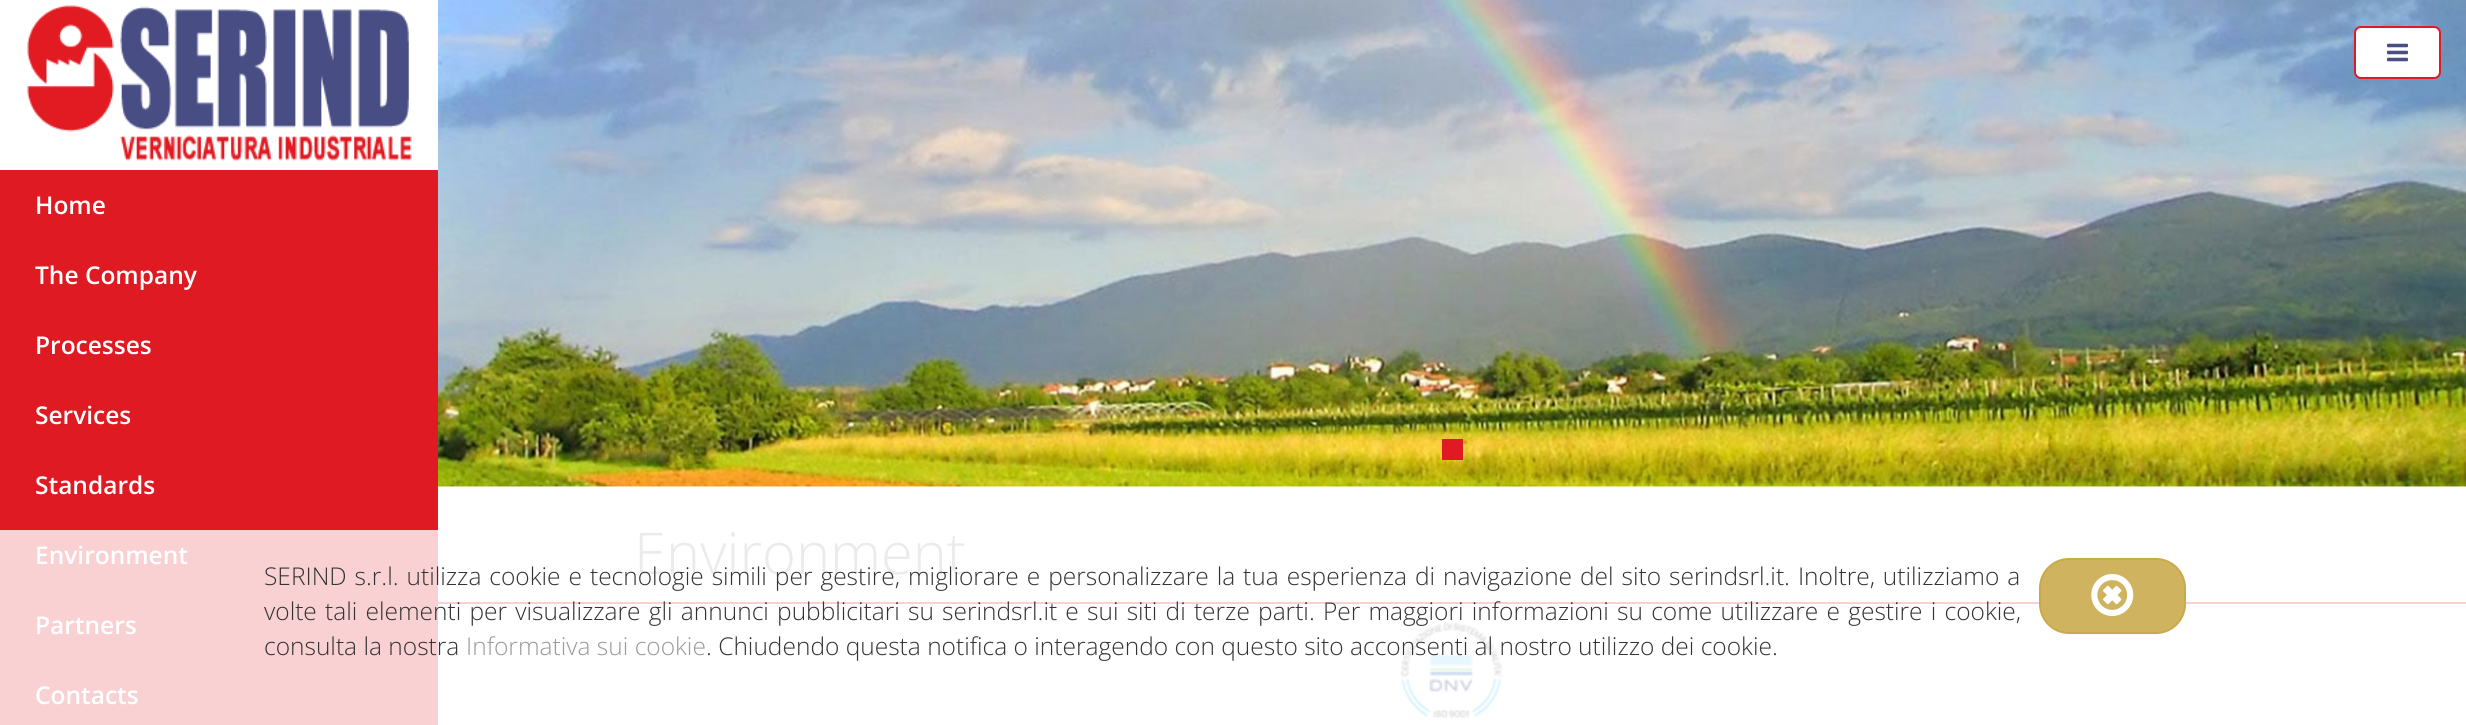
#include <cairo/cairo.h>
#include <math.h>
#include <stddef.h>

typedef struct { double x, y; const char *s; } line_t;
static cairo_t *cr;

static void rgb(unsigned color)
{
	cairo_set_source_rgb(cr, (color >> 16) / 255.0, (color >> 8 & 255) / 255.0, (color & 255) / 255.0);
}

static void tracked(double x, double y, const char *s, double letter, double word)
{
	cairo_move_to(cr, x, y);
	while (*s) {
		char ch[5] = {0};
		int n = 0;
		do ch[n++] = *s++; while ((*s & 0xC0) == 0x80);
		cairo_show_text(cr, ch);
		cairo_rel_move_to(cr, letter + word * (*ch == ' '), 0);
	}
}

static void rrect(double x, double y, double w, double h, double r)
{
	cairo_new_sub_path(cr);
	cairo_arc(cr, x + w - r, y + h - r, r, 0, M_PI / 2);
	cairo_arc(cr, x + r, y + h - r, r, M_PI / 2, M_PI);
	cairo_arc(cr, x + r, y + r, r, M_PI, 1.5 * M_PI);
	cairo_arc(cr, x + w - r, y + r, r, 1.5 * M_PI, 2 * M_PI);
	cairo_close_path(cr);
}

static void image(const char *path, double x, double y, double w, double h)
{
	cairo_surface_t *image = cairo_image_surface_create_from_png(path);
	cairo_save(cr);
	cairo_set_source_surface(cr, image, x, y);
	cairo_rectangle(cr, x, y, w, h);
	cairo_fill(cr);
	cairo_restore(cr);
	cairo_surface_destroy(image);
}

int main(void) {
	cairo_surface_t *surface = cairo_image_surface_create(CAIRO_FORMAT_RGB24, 2466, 725);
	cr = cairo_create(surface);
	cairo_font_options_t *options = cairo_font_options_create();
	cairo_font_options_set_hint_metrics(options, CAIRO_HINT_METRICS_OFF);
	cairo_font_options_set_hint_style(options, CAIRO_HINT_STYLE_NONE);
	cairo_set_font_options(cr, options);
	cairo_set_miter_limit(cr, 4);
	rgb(0xffffff);
	cairo_paint(cr);
	image("img/3.png", 438, 0, 2028, 487);
	rgb(0xffffff);
	rrect(2355, 27, 85, 51, 6);
	cairo_fill_preserve(cr);
	rgb(0xe01a22);
	cairo_stroke(cr);
	image("img/1.png", 2387, 43, 21, 19);
	cairo_rectangle(cr, 0, 170, 438, 360);
	cairo_fill(cr);
	rgb(0xf9d1d3);
	cairo_rectangle(cr, 0, 530, 438, 195);
	cairo_fill(cr);
	image("img/2.png", 27, 5, 385, 157);
	rgb(0xe01a22);
	cairo_rectangle(cr, 1442, 439, 21, 21);
	cairo_fill(cr);
	rgb(0xf9d1d3);
	cairo_rectangle(cr, 438, 602, 2028, 2);
	cairo_fill(cr);
	rgb(0xcfb35e);
	rrect(2040, 559, 145, 74, 29);
	cairo_fill_preserve(cr);
	rgb(0xc9aa4a);
	cairo_stroke(cr);
	image("img/4.png", 2091, 574, 43, 42);
	image("img/5.png", 1400, 622, 102, 96);
	cairo_select_font_face(cr, "Open Sans SemiBold", CAIRO_FONT_SLANT_NORMAL, CAIRO_FONT_WEIGHT_NORMAL);
	cairo_set_font_size(cr, 24.5);
	rgb(0xffffff);
	{
		static const line_t items[] = {
			{35, 214, "Home"},
			{35, 284, "The Company"},
			{35, 354, "Processes"},
			{35, 424, "Services"},
			{35, 494, "Standards"},
			{35, 564, "Environment"},
			{35, 634, "Partners"},
			{35, 704, "Contacts"},
		};
		for (size_t i = 0; i < sizeof items / sizeof *items; i++) {
			cairo_move_to(cr, items[i].x, items[i].y);
			cairo_show_text(cr, items[i].s);
		}
	}
	cairo_select_font_face(cr, "Open Sans Light", CAIRO_FONT_SLANT_NORMAL, CAIRO_FONT_WEIGHT_NORMAL);
	cairo_set_font_size(cr, 57.75);
	rgb(0xebebeb);
	cairo_move_to(cr, 634, 574);
	cairo_show_text(cr, "Environment");
	cairo_set_font_size(cr, 24.5);
	rgb(0x333333);
	tracked(264, 585, "SERIND s.r.l. utilizza cookie e tecnologie simili per gestire, migliorare e personalizzare la tua esperienza di navigazione del sito serindsrl.it. Inoltre, utilizziamo a", 0, 1.6);
	tracked(264, 620, "volte tali elementi per visualizzare gli annunci pubblicitari su serindsrl.it e sui siti di terze parti. Per maggiori informazioni su come utilizzare e gestire i cookie,", 0, 1.85);
	cairo_move_to(cr, 264, 655);
	cairo_show_text(cr, "consulta la nostra");
	rgb(0x999999);
	cairo_move_to(cr, 466, 655);
	cairo_show_text(cr, "Informativa sui cookie");
	rgb(0x333333);
	cairo_move_to(cr, 706, 655);
	cairo_show_text(cr, ". Chiudendo questa notifica o interagendo con questo sito acconsenti al nostro utilizzo dei cookie.");
	cairo_surface_write_to_png(surface, "page.png");
	cairo_font_options_destroy(options);
	cairo_destroy(cr);
	cairo_surface_destroy(surface);
	return 0;
}
